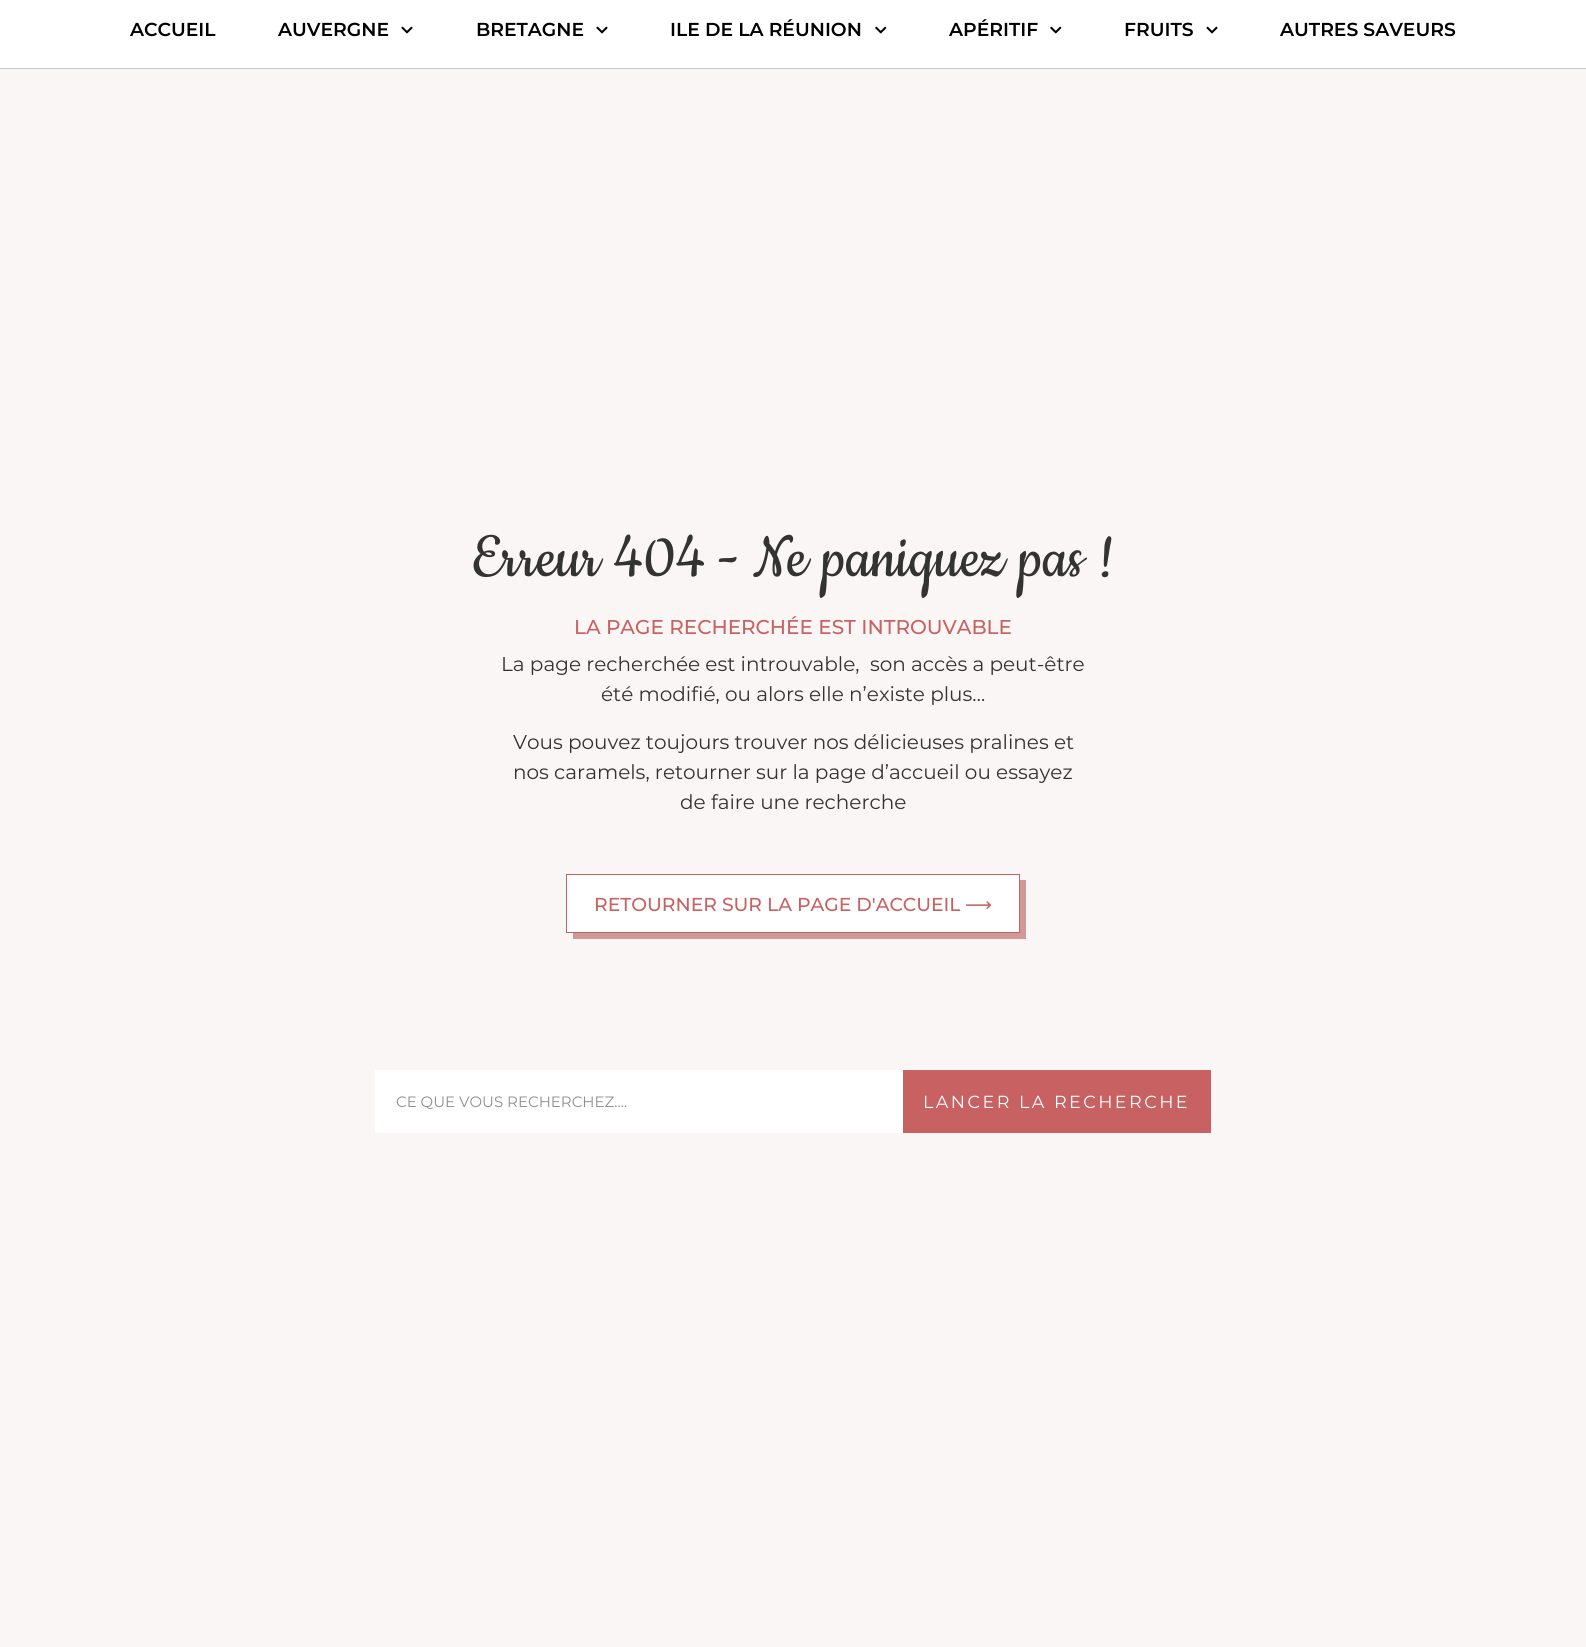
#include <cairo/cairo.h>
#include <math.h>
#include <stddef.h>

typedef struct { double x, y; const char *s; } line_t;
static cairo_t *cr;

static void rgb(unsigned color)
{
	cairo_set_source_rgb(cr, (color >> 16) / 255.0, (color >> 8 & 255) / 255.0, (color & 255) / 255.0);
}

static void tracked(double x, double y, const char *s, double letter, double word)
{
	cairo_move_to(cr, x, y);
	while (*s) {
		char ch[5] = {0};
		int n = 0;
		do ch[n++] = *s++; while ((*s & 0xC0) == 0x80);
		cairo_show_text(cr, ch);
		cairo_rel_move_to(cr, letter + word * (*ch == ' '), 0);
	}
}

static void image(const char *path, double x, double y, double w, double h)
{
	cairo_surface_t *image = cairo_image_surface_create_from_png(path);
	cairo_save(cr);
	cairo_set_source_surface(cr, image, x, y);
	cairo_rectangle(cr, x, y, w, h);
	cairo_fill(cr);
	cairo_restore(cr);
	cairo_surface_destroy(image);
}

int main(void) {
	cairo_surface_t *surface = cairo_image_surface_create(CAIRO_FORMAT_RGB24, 1586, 1647);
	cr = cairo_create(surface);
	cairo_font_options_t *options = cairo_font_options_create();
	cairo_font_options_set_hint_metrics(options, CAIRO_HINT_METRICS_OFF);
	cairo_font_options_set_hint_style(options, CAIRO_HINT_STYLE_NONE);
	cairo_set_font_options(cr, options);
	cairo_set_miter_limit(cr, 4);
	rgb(0xfaf6f5);
	cairo_paint(cr);
	rgb(0xffffff);
	cairo_rectangle(cr, 0, 0, 1586, 68);
	cairo_fill(cr);
	rgb(0xc6c6c6);
	cairo_rectangle(cr, 0, 68, 1586, 1);
	cairo_fill(cr);
	image("img/1.png", 401, 26, 12, 8);
	image("img/1.png", 596, 26, 12, 8);
	image("img/2.png", 875, 26, 12, 8);
	image("img/2.png", 1050, 26, 12, 8);
	image("img/1.png", 1206, 26, 12, 8);
	rgb(0xd09998);
	cairo_new_path(cr);
	cairo_move_to(cr, 573, 932);
	cairo_line_to(cr, 573, 939);
	cairo_line_to(cr, 1026, 939);
	cairo_line_to(cr, 1026, 880);
	cairo_line_to(cr, 1020, 880);
	cairo_line_to(cr, 1020, 932);
	cairo_close_path(cr);
	cairo_fill(cr);
	rgb(0xffffff);
	cairo_rectangle(cr, 566.5, 874.5, 453, 58);
	cairo_fill_preserve(cr);
	rgb(0xc86262);
	cairo_set_line_width(cr, 1);
	cairo_stroke(cr);
	rgb(0xffffff);
	cairo_rectangle(cr, 375, 1070, 528, 63);
	cairo_fill(cr);
	rgb(0xc86262);
	cairo_rectangle(cr, 903, 1070, 308, 63);
	cairo_fill(cr);
	cairo_select_font_face(cr, "Montserrat SemiBold", CAIRO_FONT_SLANT_NORMAL, CAIRO_FONT_WEIGHT_NORMAL);
	cairo_set_font_size(cr, 18.75);
	rgb(0x000000);
	{
		static const line_t items[] = {
			{130, 36, "ACCUEIL"},
			{278, 36, "AUVERGNE"},
			{476, 36, "BRETAGNE"},
			{670, 36, "ILE DE LA RÉUNION"},
			{949, 36, "APÉRITIF"},
			{1124, 36, "FRUITS"},
			{1280, 36, "AUTRES SAVEURS"},
		};
		for (size_t i = 0; i < sizeof items / sizeof *items; i++) {
			cairo_move_to(cr, items[i].x, items[i].y);
			cairo_show_text(cr, items[i].s);
		}
	}
	cairo_select_font_face(cr, "Cookie", CAIRO_FONT_SLANT_NORMAL, CAIRO_FONT_WEIGHT_NORMAL);
	cairo_set_font_size(cr, 68.75);
	rgb(0x333333);
	cairo_move_to(cr, 472, 576);
	cairo_show_text(cr, "Erreur 404 - Ne paniquez pas !");
	cairo_select_font_face(cr, "Montserrat Medium", CAIRO_FONT_SLANT_NORMAL, CAIRO_FONT_WEIGHT_NORMAL);
	cairo_set_font_size(cr, 20);
	rgb(0xc86262);
	cairo_move_to(cr, 574, 634);
	cairo_show_text(cr, "LA PAGE RECHERCHÉE EST INTROUVABLE");
	cairo_select_font_face(cr, "Montserrat", CAIRO_FONT_SLANT_NORMAL, CAIRO_FONT_WEIGHT_NORMAL);
	rgb(0x333333);
	{
		static const line_t items[] = {
			{501, 671, "La page recherchée est introuvable,  son accès a peut-être"},
			{601, 701, "été modifié, ou alors elle n’existe plus…"},
			{513, 749, "Vous pouvez toujours trouver nos délicieuses pralines et"},
			{513, 779, "nos caramels, retourner sur la page d’accueil ou essayez"},
			{680, 809, "de faire une recherche"},
		};
		for (size_t i = 0; i < sizeof items / sizeof *items; i++) {
			cairo_move_to(cr, items[i].x, items[i].y);
			cairo_show_text(cr, items[i].s);
		}
	}
	cairo_select_font_face(cr, "Montserrat Medium", CAIRO_FONT_SLANT_NORMAL, CAIRO_FONT_WEIGHT_NORMAL);
	cairo_set_font_size(cr, 18.75);
	rgb(0xc86262);
	cairo_move_to(cr, 594, 911);
	cairo_show_text(cr, "RETOURNER SUR LA PAGE D'ACCUEIL");
	cairo_select_font_face(cr, "DejaVu Sans", CAIRO_FONT_SLANT_NORMAL, CAIRO_FONT_WEIGHT_NORMAL);
	cairo_move_to(cr, 965, 911);
	cairo_show_text(cr, "⟶");
	cairo_select_font_face(cr, "Montserrat", CAIRO_FONT_SLANT_NORMAL, CAIRO_FONT_WEIGHT_NORMAL);
	cairo_set_font_size(cr, 15);
	rgb(0x8c8f93);
	cairo_move_to(cr, 396, 1107);
	cairo_show_text(cr, "CE QUE VOUS RECHERCHEZ....");
	cairo_set_font_size(cr, 17.5);
	rgb(0xffffff);
	tracked(923, 1108, "LANCER LA RECHERCHE", 2.5, 0);
	cairo_surface_write_to_png(surface, "page.png");
	cairo_font_options_destroy(options);
	cairo_destroy(cr);
	cairo_surface_destroy(surface);
	return 0;
}
